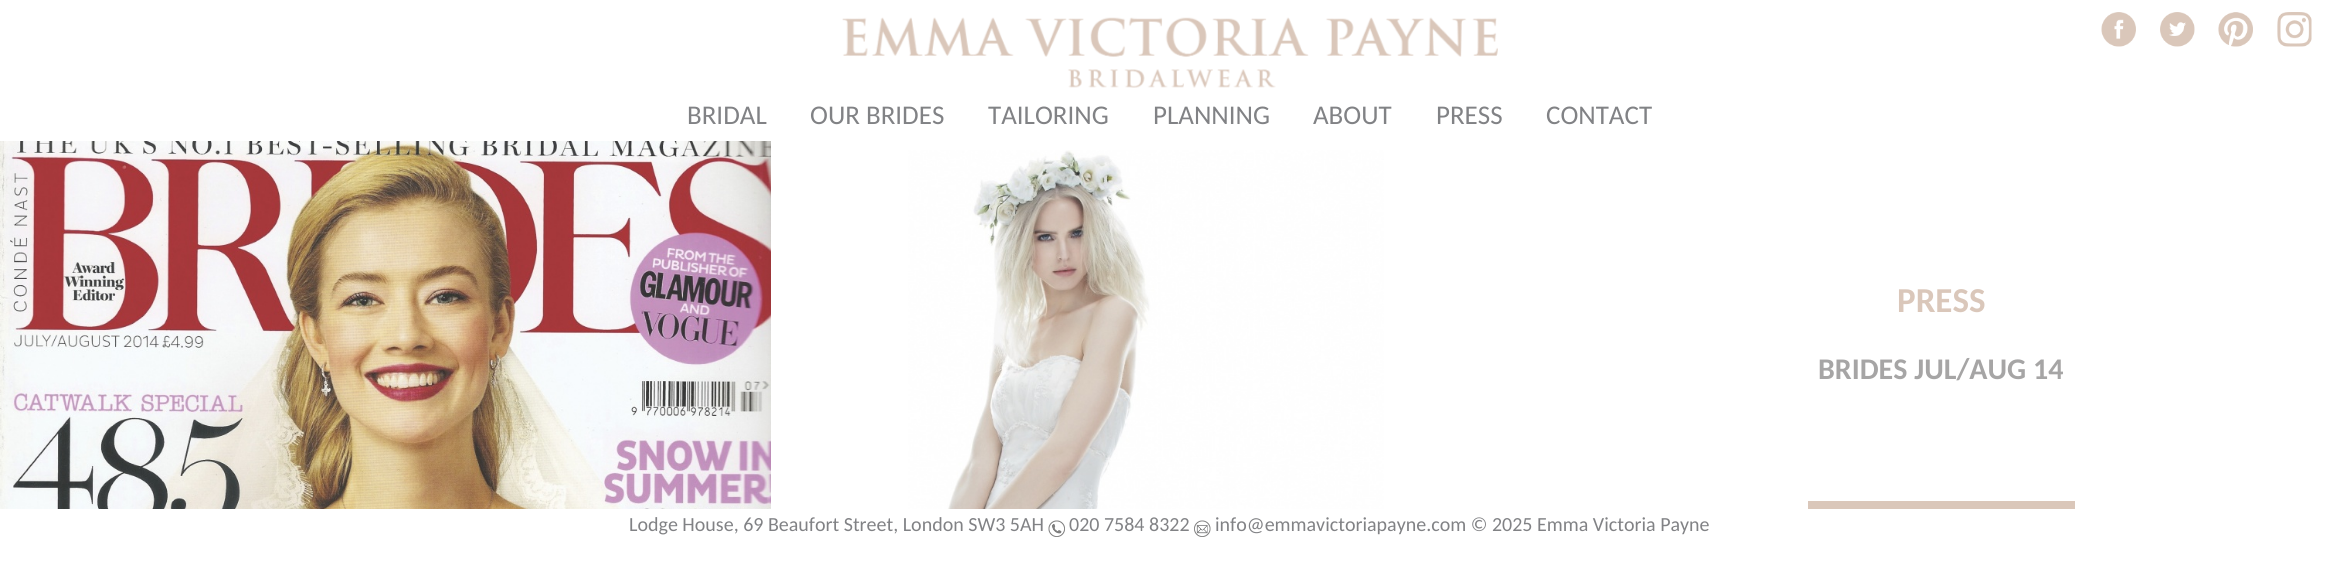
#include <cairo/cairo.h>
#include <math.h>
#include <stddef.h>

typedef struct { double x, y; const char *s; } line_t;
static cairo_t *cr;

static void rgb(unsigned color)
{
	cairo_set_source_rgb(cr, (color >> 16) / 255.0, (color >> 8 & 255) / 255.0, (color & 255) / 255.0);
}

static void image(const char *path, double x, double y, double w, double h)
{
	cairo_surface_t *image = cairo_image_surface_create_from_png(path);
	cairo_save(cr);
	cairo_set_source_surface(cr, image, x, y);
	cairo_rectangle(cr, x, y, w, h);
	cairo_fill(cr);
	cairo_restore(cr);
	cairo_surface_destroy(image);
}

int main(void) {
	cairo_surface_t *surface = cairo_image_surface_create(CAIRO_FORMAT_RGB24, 2338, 561);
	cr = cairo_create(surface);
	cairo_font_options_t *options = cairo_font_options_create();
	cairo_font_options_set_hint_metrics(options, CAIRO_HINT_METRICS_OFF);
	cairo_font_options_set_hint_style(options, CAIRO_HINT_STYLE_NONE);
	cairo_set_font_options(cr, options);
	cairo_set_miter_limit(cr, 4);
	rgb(0xffffff);
	cairo_paint(cr);
	image("img/1.png", 842, 17, 656, 71);
	image("img/2.png", 2101, 12, 35, 35);
	image("img/3.png", 2160, 12, 35, 35);
	image("img/4.png", 2218, 12, 35, 35);
	image("img/5.png", 2277, 12, 35, 35);
	image("img/6.png", 0, 141, 771, 368);
	image("img/7.png", 908, 150, 476, 359);
	rgb(0xdac7ba);
	cairo_rectangle(cr, 1808, 501, 267, 8);
	cairo_fill(cr);
	image("img/8.png", 1048, 520, 17, 17);
	image("img/9.png", 1194, 520, 17, 17);
	cairo_select_font_face(cr, "Carlito", CAIRO_FONT_SLANT_NORMAL, CAIRO_FONT_WEIGHT_NORMAL);
	cairo_set_font_size(cr, 27);
	rgb(0x818285);
	{
		static const line_t items[] = {
			{687, 124, "BRIDAL"},
			{810, 124, "OUR BRIDES"},
			{988, 124, "TAILORING"},
			{1153, 124, "PLANNING"},
			{1313, 124, "ABOUT"},
			{1436, 124, "PRESS"},
			{1546, 124, "CONTACT"},
		};
		for (size_t i = 0; i < sizeof items / sizeof *items; i++) {
			cairo_move_to(cr, items[i].x, items[i].y);
			cairo_show_text(cr, items[i].s);
		}
	}
	cairo_select_font_face(cr, "Carlito", CAIRO_FONT_SLANT_NORMAL, CAIRO_FONT_WEIGHT_BOLD);
	cairo_set_font_size(cr, 35);
	rgb(0xdac7ba);
	cairo_move_to(cr, 1897, 312);
	cairo_show_text(cr, "PRESS");
	cairo_set_font_size(cr, 30);
	rgb(0xa6a5a5);
	cairo_move_to(cr, 1818, 379);
	cairo_show_text(cr, "BRIDES JUL/AUG 14");
	cairo_select_font_face(cr, "Carlito", CAIRO_FONT_SLANT_NORMAL, CAIRO_FONT_WEIGHT_NORMAL);
	cairo_set_font_size(cr, 20);
	rgb(0x818285);
	{
		static const line_t items[] = {
			{629, 531, "Lodge House, 69 Beaufort Street, London SW3 5AH"},
			{1069, 531, "020 7584 8322"},
			{1215, 531, "info@emmavictoriapayne.com © 2025 Emma Victoria Payne"},
		};
		for (size_t i = 0; i < sizeof items / sizeof *items; i++) {
			cairo_move_to(cr, items[i].x, items[i].y);
			cairo_show_text(cr, items[i].s);
		}
	}
	cairo_surface_write_to_png(surface, "page.png");
	cairo_font_options_destroy(options);
	cairo_destroy(cr);
	cairo_surface_destroy(surface);
	return 0;
}
